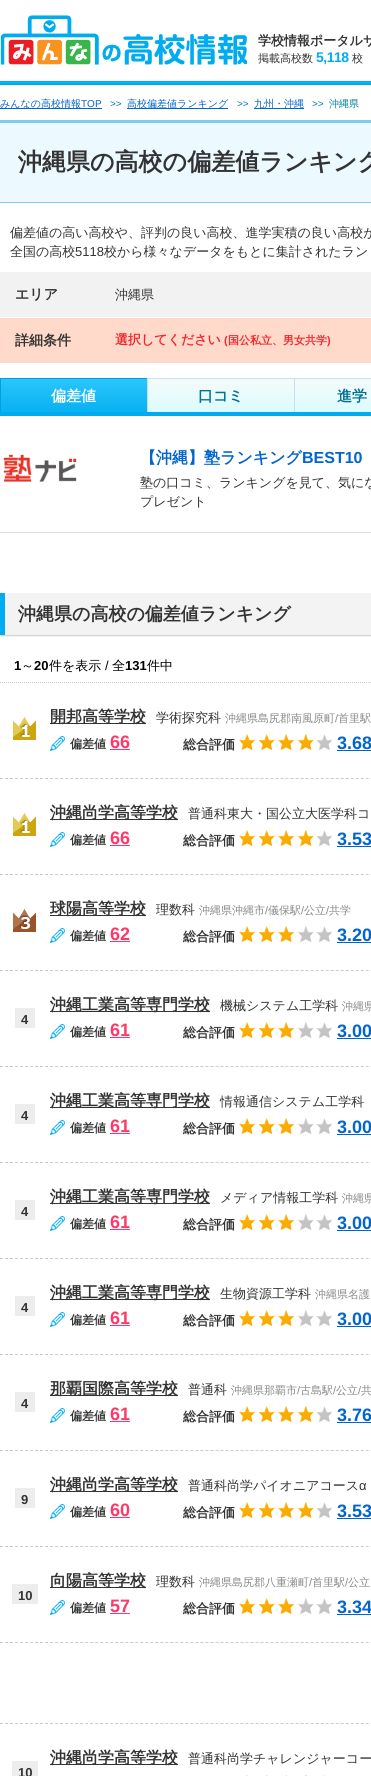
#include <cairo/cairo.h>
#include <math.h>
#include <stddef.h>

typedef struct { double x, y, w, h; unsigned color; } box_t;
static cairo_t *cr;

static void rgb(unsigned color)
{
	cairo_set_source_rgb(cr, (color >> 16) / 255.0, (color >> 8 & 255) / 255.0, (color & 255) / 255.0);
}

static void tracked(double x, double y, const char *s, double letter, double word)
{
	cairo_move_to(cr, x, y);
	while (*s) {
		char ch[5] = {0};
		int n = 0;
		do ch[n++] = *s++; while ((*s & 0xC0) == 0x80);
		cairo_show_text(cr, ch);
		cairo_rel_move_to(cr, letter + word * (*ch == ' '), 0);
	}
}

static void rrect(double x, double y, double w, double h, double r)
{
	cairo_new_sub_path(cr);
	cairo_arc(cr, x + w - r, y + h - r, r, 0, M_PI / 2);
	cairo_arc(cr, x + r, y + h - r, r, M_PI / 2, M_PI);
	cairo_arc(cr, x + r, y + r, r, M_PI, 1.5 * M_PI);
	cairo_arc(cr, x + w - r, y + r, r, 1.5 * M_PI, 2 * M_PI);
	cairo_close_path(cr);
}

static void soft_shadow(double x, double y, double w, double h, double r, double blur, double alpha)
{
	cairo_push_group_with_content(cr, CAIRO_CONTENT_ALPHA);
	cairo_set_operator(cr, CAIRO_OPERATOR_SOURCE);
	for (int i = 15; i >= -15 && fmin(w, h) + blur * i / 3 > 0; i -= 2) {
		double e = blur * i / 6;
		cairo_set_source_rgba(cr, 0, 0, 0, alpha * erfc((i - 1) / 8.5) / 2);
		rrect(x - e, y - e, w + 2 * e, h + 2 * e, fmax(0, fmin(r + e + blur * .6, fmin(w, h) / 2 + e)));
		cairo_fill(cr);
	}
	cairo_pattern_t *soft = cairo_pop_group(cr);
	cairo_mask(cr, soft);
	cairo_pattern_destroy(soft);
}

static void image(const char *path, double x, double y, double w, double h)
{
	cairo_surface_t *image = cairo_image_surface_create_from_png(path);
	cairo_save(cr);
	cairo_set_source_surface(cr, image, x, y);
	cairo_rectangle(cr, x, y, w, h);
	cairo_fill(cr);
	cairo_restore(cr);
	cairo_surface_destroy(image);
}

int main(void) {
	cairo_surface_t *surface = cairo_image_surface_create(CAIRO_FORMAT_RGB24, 371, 1776);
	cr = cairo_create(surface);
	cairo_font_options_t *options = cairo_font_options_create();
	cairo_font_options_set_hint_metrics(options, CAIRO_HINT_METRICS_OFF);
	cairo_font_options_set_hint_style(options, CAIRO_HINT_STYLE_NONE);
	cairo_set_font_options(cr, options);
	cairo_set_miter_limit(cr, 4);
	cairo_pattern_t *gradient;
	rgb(0xffffff);
	cairo_paint(cr);
	image("img/1.png", 0, 81, 371, 5);
	image("img/2.png", 0, 15, 248, 50);
	{
		static const box_t items[] = {
			{0, 108, 102, 1, 0x0265cb},
			{127, 108, 101, 1, 0x0265cb},
			{254, 108, 50, 1, 0x0265cb},
			{0, 123, 371, 79, 0xecf9ff},
			{0, 120, 371, 3, 0x7dccea},
			{0, 202, 371, 1, 0x7dccea},
			{0, 272, 371, 45, 0xf2f2f2},
			{0, 318, 371, 45, 0xffd9c9},
			{0, 412, 371, 4, 0x00aaee},
		};
		for (size_t i = 0; i < sizeof items / sizeof *items; i++) {
			rgb(items[i].color);
			cairo_rectangle(cr, items[i].x, items[i].y, items[i].w, items[i].h);
			cairo_fill(cr);
		}
	}
	gradient = cairo_pattern_create_linear(74, 379, 74, 412);
	cairo_pattern_add_color_stop_rgba(gradient, 0, 0.165, 0.773, 0.992, 1);
	cairo_pattern_add_color_stop_rgba(gradient, 1, 0.035, 0.694, 0.945, 1);
	cairo_set_source(cr, gradient);
	cairo_pattern_destroy(gradient);
	cairo_rectangle(cr, 1, 379, 146, 33);
	cairo_fill(cr);
	rgb(0x009fdd);
	cairo_rectangle(cr, 0, 378, 147, 1);
	cairo_fill(cr);
	cairo_rectangle(cr, 0, 378, 1, 34);
	cairo_fill(cr);
	gradient = cairo_pattern_create_linear(221, 379, 221, 412);
	cairo_pattern_add_color_stop_rgba(gradient, 0, 0.961, 0.98, 0.98, 1);
	cairo_pattern_add_color_stop_rgba(gradient, 1, 0.859, 0.988, 0.996, 1);
	cairo_set_source(cr, gradient);
	cairo_pattern_destroy(gradient);
	cairo_rectangle(cr, 148, 379, 146, 33);
	cairo_fill(cr);
	rgb(0xc6e1eb);
	cairo_rectangle(cr, 147, 378, 224, 1);
	cairo_fill(cr);
	cairo_rectangle(cr, 147, 378, 1, 34);
	cairo_fill(cr);
	gradient = cairo_pattern_create_linear(368, 379, 368, 412);
	cairo_pattern_add_color_stop_rgba(gradient, 0, 0.961, 0.98, 0.98, 1);
	cairo_pattern_add_color_stop_rgba(gradient, 1, 0.859, 0.988, 0.996, 1);
	cairo_set_source(cr, gradient);
	cairo_pattern_destroy(gradient);
	cairo_rectangle(cr, 295, 379, 76, 33);
	cairo_fill(cr);
	rgb(0xc6e1eb);
	cairo_rectangle(cr, 294, 378, 1, 34);
	cairo_fill(cr);
	rgb(0xe1e1e1);
	cairo_rectangle(cr, 0, 532, 371, 1);
	cairo_fill(cr);
	image("img/3.png", 3, 454, 74, 28);
	rgb(0x000000);
	soft_shadow(0, 594, 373, 42, 0, 0.5, 0.2);
	rgb(0xf3f3f3);
	cairo_rectangle(cr, 5, 593, 366, 42);
	cairo_fill(cr);
	rgb(0x00acef);
	cairo_rectangle(cr, 0, 593, 5, 42);
	cairo_fill(cr);
	cairo_new_path(cr);
	cairo_move_to(cr, 0, 682.5);
	cairo_line_to(cr, 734, 682.5);
	rgb(0xcccccc);
	cairo_set_line_width(cr, 1);
	cairo_set_dash(cr, (double[]){1, 1}, 2, 0);
	cairo_stroke(cr);
	cairo_new_path(cr);
	cairo_move_to(cr, 0, 778.5);
	cairo_line_to(cr, 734, 778.5);
	cairo_set_dash(cr, (double[]){3, 2.01}, 2, 0);
	cairo_stroke(cr);
	image("img/4.png", 13, 717, 23, 23);
	rgb(0x333333);
	cairo_rectangle(cr, 50, 723, 96, 1);
	cairo_fill(cr);
	image("img/5.png", 50, 736, 15, 15);
	rgb(0xff386a);
	cairo_rectangle(cr, 110, 749, 20, 1);
	cairo_fill(cr);
	image("img/6.png", 239, 734, 93, 16);
	rgb(0x0265cb);
	cairo_rectangle(cr, 337, 750, 34, 1);
	cairo_fill(cr);
	cairo_new_path(cr);
	cairo_move_to(cr, 0, 874.5);
	cairo_line_to(cr, 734, 874.5);
	rgb(0xcccccc);
	cairo_stroke(cr);
	image("img/4.png", 13, 813, 23, 23);
	rgb(0x333333);
	cairo_rectangle(cr, 50, 819, 128, 1);
	cairo_fill(cr);
	image("img/5.png", 50, 832, 15, 15);
	rgb(0xff386a);
	cairo_rectangle(cr, 110, 845, 20, 1);
	cairo_fill(cr);
	image("img/6.png", 239, 830, 93, 16);
	rgb(0x0265cb);
	cairo_rectangle(cr, 337, 846, 34, 1);
	cairo_fill(cr);
	cairo_new_path(cr);
	cairo_move_to(cr, 0, 970.5);
	cairo_line_to(cr, 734, 970.5);
	rgb(0xcccccc);
	cairo_stroke(cr);
	image("img/7.png", 13, 909, 23, 23);
	rgb(0x333333);
	cairo_rectangle(cr, 50, 915, 96, 1);
	cairo_fill(cr);
	image("img/5.png", 50, 928, 15, 15);
	rgb(0xff386a);
	cairo_rectangle(cr, 110, 941, 20, 1);
	cairo_fill(cr);
	image("img/8.png", 239, 926, 93, 16);
	rgb(0x0265cb);
	cairo_rectangle(cr, 337, 942, 34, 1);
	cairo_fill(cr);
	cairo_new_path(cr);
	cairo_move_to(cr, 0, 1066.5);
	cairo_line_to(cr, 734, 1066.5);
	rgb(0xcccccc);
	cairo_stroke(cr);
	rgb(0xededed);
	cairo_rectangle(cr, 15, 1008, 20, 20);
	cairo_fill(cr);
	rgb(0x333333);
	cairo_rectangle(cr, 50, 1011, 160, 1);
	cairo_fill(cr);
	image("img/5.png", 50, 1024, 15, 15);
	rgb(0xff386a);
	cairo_rectangle(cr, 110, 1037, 20, 1);
	cairo_fill(cr);
	image("img/8.png", 239, 1022, 93, 16);
	rgb(0x0265cb);
	cairo_rectangle(cr, 337, 1038, 34, 1);
	cairo_fill(cr);
	cairo_new_path(cr);
	cairo_move_to(cr, 0, 1162.5);
	cairo_line_to(cr, 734, 1162.5);
	rgb(0xcccccc);
	cairo_stroke(cr);
	rgb(0xededed);
	cairo_rectangle(cr, 15, 1104, 20, 20);
	cairo_fill(cr);
	rgb(0x333333);
	cairo_rectangle(cr, 50, 1107, 160, 1);
	cairo_fill(cr);
	image("img/5.png", 50, 1120, 15, 15);
	rgb(0xff386a);
	cairo_rectangle(cr, 110, 1133, 20, 1);
	cairo_fill(cr);
	image("img/8.png", 239, 1118, 93, 16);
	rgb(0x0265cb);
	cairo_rectangle(cr, 337, 1134, 34, 1);
	cairo_fill(cr);
	cairo_new_path(cr);
	cairo_move_to(cr, 0, 1258.5);
	cairo_line_to(cr, 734, 1258.5);
	rgb(0xcccccc);
	cairo_stroke(cr);
	rgb(0xededed);
	cairo_rectangle(cr, 15, 1200, 20, 20);
	cairo_fill(cr);
	rgb(0x333333);
	cairo_rectangle(cr, 50, 1203, 160, 1);
	cairo_fill(cr);
	image("img/5.png", 50, 1216, 15, 15);
	rgb(0xff386a);
	cairo_rectangle(cr, 110, 1229, 20, 1);
	cairo_fill(cr);
	image("img/8.png", 239, 1214, 93, 16);
	rgb(0x0265cb);
	cairo_rectangle(cr, 337, 1230, 34, 1);
	cairo_fill(cr);
	cairo_new_path(cr);
	cairo_move_to(cr, 0, 1354.5);
	cairo_line_to(cr, 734, 1354.5);
	rgb(0xcccccc);
	cairo_stroke(cr);
	rgb(0xededed);
	cairo_rectangle(cr, 15, 1296, 20, 20);
	cairo_fill(cr);
	rgb(0x333333);
	cairo_rectangle(cr, 50, 1299, 160, 1);
	cairo_fill(cr);
	image("img/5.png", 50, 1312, 15, 15);
	rgb(0xff386a);
	cairo_rectangle(cr, 110, 1325, 20, 1);
	cairo_fill(cr);
	image("img/8.png", 239, 1310, 93, 16);
	rgb(0x0265cb);
	cairo_rectangle(cr, 337, 1326, 34, 1);
	cairo_fill(cr);
	cairo_new_path(cr);
	cairo_move_to(cr, 0, 1450.5);
	cairo_line_to(cr, 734, 1450.5);
	rgb(0xcccccc);
	cairo_stroke(cr);
	rgb(0xededed);
	cairo_rectangle(cr, 15, 1392, 20, 20);
	cairo_fill(cr);
	rgb(0x333333);
	cairo_rectangle(cr, 50, 1395, 128, 1);
	cairo_fill(cr);
	image("img/5.png", 50, 1408, 15, 15);
	rgb(0xff386a);
	cairo_rectangle(cr, 110, 1421, 20, 1);
	cairo_fill(cr);
	image("img/6.png", 239, 1406, 93, 16);
	rgb(0x0265cb);
	cairo_rectangle(cr, 337, 1422, 34, 1);
	cairo_fill(cr);
	cairo_new_path(cr);
	cairo_move_to(cr, 0, 1546.5);
	cairo_line_to(cr, 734, 1546.5);
	rgb(0xcccccc);
	cairo_stroke(cr);
	rgb(0xededed);
	cairo_rectangle(cr, 15, 1488, 20, 20);
	cairo_fill(cr);
	rgb(0x333333);
	cairo_rectangle(cr, 50, 1491, 128, 1);
	cairo_fill(cr);
	image("img/5.png", 50, 1504, 15, 15);
	rgb(0xff386a);
	cairo_rectangle(cr, 110, 1517, 20, 1);
	cairo_fill(cr);
	image("img/6.png", 239, 1502, 93, 16);
	rgb(0x0265cb);
	cairo_rectangle(cr, 337, 1518, 34, 1);
	cairo_fill(cr);
	cairo_new_path(cr);
	cairo_move_to(cr, 0, 1642.5);
	cairo_line_to(cr, 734, 1642.5);
	rgb(0xcccccc);
	cairo_stroke(cr);
	rgb(0xededed);
	cairo_rectangle(cr, 12, 1584, 26, 20);
	cairo_fill(cr);
	rgb(0x333333);
	cairo_rectangle(cr, 50, 1587, 96, 1);
	cairo_fill(cr);
	image("img/5.png", 50, 1600, 15, 15);
	rgb(0xff386a);
	cairo_rectangle(cr, 110, 1613, 20, 1);
	cairo_fill(cr);
	image("img/8.png", 239, 1598, 93, 16);
	rgb(0x0265cb);
	cairo_rectangle(cr, 337, 1614, 34, 1);
	cairo_fill(cr);
	cairo_new_path(cr);
	cairo_move_to(cr, 0, 1723.5);
	cairo_line_to(cr, 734, 1723.5);
	rgb(0xcccccc);
	cairo_stroke(cr);
	rgb(0x333333);
	cairo_rectangle(cr, 50, 1764, 128, 1);
	cairo_fill(cr);
	image("img/9.png", 246, 1775, 79, 1);
	rgb(0xededed);
	cairo_rectangle(cr, 12, 1761, 26, 15);
	cairo_fill(cr);
	cairo_select_font_face(cr, "WenQuanYi Zen Hei", CAIRO_FONT_SLANT_NORMAL, CAIRO_FONT_WEIGHT_BOLD);
	cairo_set_font_size(cr, 13);
	rgb(0x333333);
	cairo_move_to(cr, 258, 45);
	cairo_show_text(cr, "学校情報ポータルサ");
	cairo_select_font_face(cr, "WenQuanYi Zen Hei Medium", CAIRO_FONT_SLANT_NORMAL, CAIRO_FONT_WEIGHT_NORMAL);
	cairo_set_font_size(cr, 11);
	cairo_move_to(cr, 258, 62);
	cairo_show_text(cr, "掲載高校数");
	cairo_select_font_face(cr, "Liberation Sans", CAIRO_FONT_SLANT_NORMAL, CAIRO_FONT_WEIGHT_BOLD);
	cairo_set_font_size(cr, 14);
	rgb(0x00acef);
	tracked(316, 62, "5,118", -0.5, 0);
	cairo_select_font_face(cr, "WenQuanYi Zen Hei Medium", CAIRO_FONT_SLANT_NORMAL, CAIRO_FONT_WEIGHT_NORMAL);
	cairo_set_font_size(cr, 11);
	rgb(0x333333);
	cairo_move_to(cr, 352, 62);
	cairo_show_text(cr, "校");
	cairo_set_font_size(cr, 10);
	rgb(0x0265cb);
	cairo_move_to(cr, 0, 107);
	cairo_show_text(cr, "みんなの高校情報");
	cairo_select_font_face(cr, "Liberation Sans", CAIRO_FONT_SLANT_NORMAL, CAIRO_FONT_WEIGHT_NORMAL);
	cairo_move_to(cr, 81, 107);
	cairo_show_text(cr, "TOP");
	rgb(0x007da0);
	cairo_move_to(cr, 110, 107);
	cairo_show_text(cr, ">>");
	cairo_select_font_face(cr, "WenQuanYi Zen Hei Medium", CAIRO_FONT_SLANT_NORMAL, CAIRO_FONT_WEIGHT_NORMAL);
	rgb(0x0265cb);
	cairo_move_to(cr, 127, 107);
	cairo_show_text(cr, "高校偏差値ランキング");
	cairo_select_font_face(cr, "Liberation Sans", CAIRO_FONT_SLANT_NORMAL, CAIRO_FONT_WEIGHT_NORMAL);
	rgb(0x007da0);
	cairo_move_to(cr, 237, 107);
	cairo_show_text(cr, ">>");
	cairo_select_font_face(cr, "WenQuanYi Zen Hei Medium", CAIRO_FONT_SLANT_NORMAL, CAIRO_FONT_WEIGHT_NORMAL);
	rgb(0x0265cb);
	cairo_move_to(cr, 254, 107);
	cairo_show_text(cr, "九州・沖縄");
	cairo_select_font_face(cr, "Liberation Sans", CAIRO_FONT_SLANT_NORMAL, CAIRO_FONT_WEIGHT_NORMAL);
	rgb(0x007da0);
	cairo_move_to(cr, 312, 107);
	cairo_show_text(cr, ">>");
	cairo_select_font_face(cr, "WenQuanYi Zen Hei Medium", CAIRO_FONT_SLANT_NORMAL, CAIRO_FONT_WEIGHT_NORMAL);
	cairo_move_to(cr, 329, 107);
	cairo_show_text(cr, "沖縄県");
	cairo_select_font_face(cr, "WenQuanYi Zen Hei", CAIRO_FONT_SLANT_NORMAL, CAIRO_FONT_WEIGHT_BOLD);
	cairo_set_font_size(cr, 24);
	rgb(0x333333);
	cairo_move_to(cr, 18, 170);
	cairo_show_text(cr, "沖縄県の高校の偏差値ランキング");
	cairo_select_font_face(cr, "WenQuanYi Zen Hei Medium", CAIRO_FONT_SLANT_NORMAL, CAIRO_FONT_WEIGHT_NORMAL);
	cairo_set_font_size(cr, 13);
	cairo_move_to(cr, 10, 237);
	cairo_show_text(cr, "偏差値の高い高校や、評判の良い高校、進学実積の良い高校が");
	cairo_move_to(cr, 10, 256);
	cairo_show_text(cr, "全国の高校");
	cairo_select_font_face(cr, "Liberation Sans", CAIRO_FONT_SLANT_NORMAL, CAIRO_FONT_WEIGHT_NORMAL);
	cairo_move_to(cr, 75, 256);
	cairo_show_text(cr, "5118");
	cairo_select_font_face(cr, "WenQuanYi Zen Hei Medium", CAIRO_FONT_SLANT_NORMAL, CAIRO_FONT_WEIGHT_NORMAL);
	cairo_move_to(cr, 104, 256);
	cairo_show_text(cr, "校から様々なデータをもとに集計されたラン");
	cairo_select_font_face(cr, "WenQuanYi Zen Hei", CAIRO_FONT_SLANT_NORMAL, CAIRO_FONT_WEIGHT_BOLD);
	cairo_set_font_size(cr, 14);
	cairo_move_to(cr, 15, 299);
	cairo_show_text(cr, "エリア");
	cairo_select_font_face(cr, "WenQuanYi Zen Hei Medium", CAIRO_FONT_SLANT_NORMAL, CAIRO_FONT_WEIGHT_NORMAL);
	cairo_set_font_size(cr, 13);
	cairo_move_to(cr, 115, 299);
	cairo_show_text(cr, "沖縄県");
	cairo_select_font_face(cr, "WenQuanYi Zen Hei", CAIRO_FONT_SLANT_NORMAL, CAIRO_FONT_WEIGHT_BOLD);
	cairo_set_font_size(cr, 14);
	cairo_move_to(cr, 15, 345);
	cairo_show_text(cr, "詳細条件");
	cairo_set_font_size(cr, 13);
	rgb(0xf2282d);
	cairo_move_to(cr, 115, 344);
	cairo_show_text(cr, "選択してください");
	cairo_select_font_face(cr, "Liberation Sans", CAIRO_FONT_SLANT_NORMAL, CAIRO_FONT_WEIGHT_BOLD);
	cairo_set_font_size(cr, 11);
	cairo_move_to(cr, 224, 344);
	cairo_show_text(cr, "(");
	cairo_select_font_face(cr, "WenQuanYi Zen Hei", CAIRO_FONT_SLANT_NORMAL, CAIRO_FONT_WEIGHT_BOLD);
	cairo_move_to(cr, 228, 344);
	cairo_show_text(cr, "国公私立、男女共学");
	cairo_select_font_face(cr, "Liberation Sans", CAIRO_FONT_SLANT_NORMAL, CAIRO_FONT_WEIGHT_BOLD);
	cairo_move_to(cr, 327, 344);
	cairo_show_text(cr, ")");
	cairo_select_font_face(cr, "WenQuanYi Zen Hei", CAIRO_FONT_SLANT_NORMAL, CAIRO_FONT_WEIGHT_BOLD);
	cairo_set_font_size(cr, 15);
	rgb(0xffffff);
	cairo_move_to(cr, 51, 401);
	cairo_show_text(cr, "偏差値");
	rgb(0x037193);
	cairo_move_to(cr, 198, 401);
	cairo_show_text(cr, "口コミ");
	cairo_move_to(cr, 337, 401);
	cairo_show_text(cr, "進学");
	cairo_set_font_size(cr, 16);
	rgb(0x0265cb);
	cairo_move_to(cr, 140, 463);
	cairo_show_text(cr, "【沖縄】塾ランキング");
	cairo_select_font_face(cr, "Liberation Sans", CAIRO_FONT_SLANT_NORMAL, CAIRO_FONT_WEIGHT_BOLD);
	cairo_move_to(cr, 302, 463);
	cairo_show_text(cr, "BEST10");
	cairo_select_font_face(cr, "WenQuanYi Zen Hei Medium", CAIRO_FONT_SLANT_NORMAL, CAIRO_FONT_WEIGHT_NORMAL);
	cairo_set_font_size(cr, 13);
	rgb(0x333333);
	cairo_move_to(cr, 140, 487);
	cairo_show_text(cr, "塾の口コミ、ランキングを見て、気にな");
	cairo_move_to(cr, 140, 506);
	cairo_show_text(cr, "プレゼント");
	cairo_select_font_face(cr, "WenQuanYi Zen Hei", CAIRO_FONT_SLANT_NORMAL, CAIRO_FONT_WEIGHT_BOLD);
	cairo_set_font_size(cr, 18);
	cairo_move_to(cr, 18, 620);
	cairo_show_text(cr, "沖縄県の高校の偏差値ランキング");
	cairo_select_font_face(cr, "Liberation Sans", CAIRO_FONT_SLANT_NORMAL, CAIRO_FONT_WEIGHT_BOLD);
	cairo_set_font_size(cr, 13);
	rgb(0x000000);
	cairo_move_to(cr, 14, 670);
	cairo_show_text(cr, "1");
	cairo_select_font_face(cr, "WenQuanYi Zen Hei Medium", CAIRO_FONT_SLANT_NORMAL, CAIRO_FONT_WEIGHT_NORMAL);
	cairo_move_to(cr, 21, 670);
	cairo_show_text(cr, "～");
	cairo_select_font_face(cr, "Liberation Sans", CAIRO_FONT_SLANT_NORMAL, CAIRO_FONT_WEIGHT_BOLD);
	cairo_move_to(cr, 34, 670);
	cairo_show_text(cr, "20");
	cairo_select_font_face(cr, "WenQuanYi Zen Hei Medium", CAIRO_FONT_SLANT_NORMAL, CAIRO_FONT_WEIGHT_NORMAL);
	cairo_move_to(cr, 49, 670);
	cairo_show_text(cr, "件を表示");
	cairo_select_font_face(cr, "Liberation Sans", CAIRO_FONT_SLANT_NORMAL, CAIRO_FONT_WEIGHT_NORMAL);
	cairo_move_to(cr, 105, 670);
	cairo_show_text(cr, "/");
	cairo_select_font_face(cr, "WenQuanYi Zen Hei Medium", CAIRO_FONT_SLANT_NORMAL, CAIRO_FONT_WEIGHT_NORMAL);
	cairo_move_to(cr, 112, 670);
	cairo_show_text(cr, "全");
	cairo_select_font_face(cr, "Liberation Sans", CAIRO_FONT_SLANT_NORMAL, CAIRO_FONT_WEIGHT_BOLD);
	cairo_move_to(cr, 125, 670);
	cairo_show_text(cr, "131");
	cairo_select_font_face(cr, "WenQuanYi Zen Hei Medium", CAIRO_FONT_SLANT_NORMAL, CAIRO_FONT_WEIGHT_NORMAL);
	cairo_move_to(cr, 147, 670);
	cairo_show_text(cr, "件中");
	cairo_select_font_face(cr, "WenQuanYi Zen Hei", CAIRO_FONT_SLANT_NORMAL, CAIRO_FONT_WEIGHT_BOLD);
	cairo_set_font_size(cr, 16);
	rgb(0x333333);
	cairo_move_to(cr, 50, 722);
	cairo_show_text(cr, "開邦高等学校");
	cairo_select_font_face(cr, "WenQuanYi Zen Hei Medium", CAIRO_FONT_SLANT_NORMAL, CAIRO_FONT_WEIGHT_NORMAL);
	cairo_set_font_size(cr, 13);
	cairo_move_to(cr, 156, 722);
	cairo_show_text(cr, "学術探究科");
	cairo_set_font_size(cr, 11);
	rgb(0x888888);
	cairo_move_to(cr, 225, 722);
	cairo_show_text(cr, "沖縄県島尻郡南風原町");
	cairo_select_font_face(cr, "Liberation Sans", CAIRO_FONT_SLANT_NORMAL, CAIRO_FONT_WEIGHT_NORMAL);
	cairo_move_to(cr, 335, 722);
	cairo_show_text(cr, "/");
	cairo_select_font_face(cr, "WenQuanYi Zen Hei Medium", CAIRO_FONT_SLANT_NORMAL, CAIRO_FONT_WEIGHT_NORMAL);
	cairo_move_to(cr, 338, 722);
	cairo_show_text(cr, "首里駅");
	cairo_select_font_face(cr, "WenQuanYi Zen Hei", CAIRO_FONT_SLANT_NORMAL, CAIRO_FONT_WEIGHT_BOLD);
	cairo_set_font_size(cr, 12);
	rgb(0x333333);
	cairo_move_to(cr, 70, 748);
	cairo_show_text(cr, "偏差値");
	cairo_select_font_face(cr, "Liberation Sans", CAIRO_FONT_SLANT_NORMAL, CAIRO_FONT_WEIGHT_BOLD);
	cairo_set_font_size(cr, 18);
	rgb(0xff386a);
	cairo_move_to(cr, 110, 748);
	cairo_show_text(cr, "66");
	cairo_select_font_face(cr, "WenQuanYi Zen Hei", CAIRO_FONT_SLANT_NORMAL, CAIRO_FONT_WEIGHT_BOLD);
	cairo_set_font_size(cr, 13);
	rgb(0x333333);
	cairo_move_to(cr, 183, 749);
	cairo_show_text(cr, "総合評価");
	cairo_select_font_face(cr, "Liberation Sans", CAIRO_FONT_SLANT_NORMAL, CAIRO_FONT_WEIGHT_BOLD);
	cairo_set_font_size(cr, 18);
	rgb(0x0265cb);
	cairo_move_to(cr, 337, 749);
	cairo_show_text(cr, "3.68");
	cairo_select_font_face(cr, "WenQuanYi Zen Hei", CAIRO_FONT_SLANT_NORMAL, CAIRO_FONT_WEIGHT_BOLD);
	cairo_set_font_size(cr, 16);
	rgb(0x333333);
	cairo_move_to(cr, 50, 818);
	cairo_show_text(cr, "沖縄尚学高等学校");
	cairo_select_font_face(cr, "WenQuanYi Zen Hei Medium", CAIRO_FONT_SLANT_NORMAL, CAIRO_FONT_WEIGHT_NORMAL);
	cairo_set_font_size(cr, 13);
	cairo_move_to(cr, 188, 818);
	cairo_show_text(cr, "普通科東大・国公立大医学科コ");
	cairo_select_font_face(cr, "WenQuanYi Zen Hei", CAIRO_FONT_SLANT_NORMAL, CAIRO_FONT_WEIGHT_BOLD);
	cairo_set_font_size(cr, 12);
	cairo_move_to(cr, 70, 844);
	cairo_show_text(cr, "偏差値");
	cairo_select_font_face(cr, "Liberation Sans", CAIRO_FONT_SLANT_NORMAL, CAIRO_FONT_WEIGHT_BOLD);
	cairo_set_font_size(cr, 18);
	rgb(0xff386a);
	cairo_move_to(cr, 110, 844);
	cairo_show_text(cr, "66");
	cairo_select_font_face(cr, "WenQuanYi Zen Hei", CAIRO_FONT_SLANT_NORMAL, CAIRO_FONT_WEIGHT_BOLD);
	cairo_set_font_size(cr, 13);
	rgb(0x333333);
	cairo_move_to(cr, 183, 845);
	cairo_show_text(cr, "総合評価");
	cairo_select_font_face(cr, "Liberation Sans", CAIRO_FONT_SLANT_NORMAL, CAIRO_FONT_WEIGHT_BOLD);
	cairo_set_font_size(cr, 18);
	rgb(0x0265cb);
	cairo_move_to(cr, 337, 845);
	cairo_show_text(cr, "3.53");
	cairo_select_font_face(cr, "WenQuanYi Zen Hei", CAIRO_FONT_SLANT_NORMAL, CAIRO_FONT_WEIGHT_BOLD);
	cairo_set_font_size(cr, 16);
	rgb(0x333333);
	cairo_move_to(cr, 50, 914);
	cairo_show_text(cr, "球陽高等学校");
	cairo_select_font_face(cr, "WenQuanYi Zen Hei Medium", CAIRO_FONT_SLANT_NORMAL, CAIRO_FONT_WEIGHT_NORMAL);
	cairo_set_font_size(cr, 13);
	cairo_move_to(cr, 156, 914);
	cairo_show_text(cr, "理数科");
	cairo_set_font_size(cr, 11);
	rgb(0x888888);
	cairo_move_to(cr, 199, 914);
	cairo_show_text(cr, "沖縄県沖縄市");
	cairo_select_font_face(cr, "Liberation Sans", CAIRO_FONT_SLANT_NORMAL, CAIRO_FONT_WEIGHT_NORMAL);
	cairo_move_to(cr, 265, 914);
	cairo_show_text(cr, "/");
	cairo_select_font_face(cr, "WenQuanYi Zen Hei Medium", CAIRO_FONT_SLANT_NORMAL, CAIRO_FONT_WEIGHT_NORMAL);
	cairo_move_to(cr, 268, 914);
	cairo_show_text(cr, "儀保駅");
	cairo_select_font_face(cr, "Liberation Sans", CAIRO_FONT_SLANT_NORMAL, CAIRO_FONT_WEIGHT_NORMAL);
	cairo_move_to(cr, 301, 914);
	cairo_show_text(cr, "/");
	cairo_select_font_face(cr, "WenQuanYi Zen Hei Medium", CAIRO_FONT_SLANT_NORMAL, CAIRO_FONT_WEIGHT_NORMAL);
	cairo_move_to(cr, 304, 914);
	cairo_show_text(cr, "公立");
	cairo_select_font_face(cr, "Liberation Sans", CAIRO_FONT_SLANT_NORMAL, CAIRO_FONT_WEIGHT_NORMAL);
	cairo_move_to(cr, 326, 914);
	cairo_show_text(cr, "/");
	cairo_select_font_face(cr, "WenQuanYi Zen Hei Medium", CAIRO_FONT_SLANT_NORMAL, CAIRO_FONT_WEIGHT_NORMAL);
	cairo_move_to(cr, 329, 914);
	cairo_show_text(cr, "共学");
	cairo_select_font_face(cr, "WenQuanYi Zen Hei", CAIRO_FONT_SLANT_NORMAL, CAIRO_FONT_WEIGHT_BOLD);
	cairo_set_font_size(cr, 12);
	rgb(0x333333);
	cairo_move_to(cr, 70, 940);
	cairo_show_text(cr, "偏差値");
	cairo_select_font_face(cr, "Liberation Sans", CAIRO_FONT_SLANT_NORMAL, CAIRO_FONT_WEIGHT_BOLD);
	cairo_set_font_size(cr, 18);
	rgb(0xff386a);
	cairo_move_to(cr, 110, 940);
	cairo_show_text(cr, "62");
	cairo_select_font_face(cr, "WenQuanYi Zen Hei", CAIRO_FONT_SLANT_NORMAL, CAIRO_FONT_WEIGHT_BOLD);
	cairo_set_font_size(cr, 13);
	rgb(0x333333);
	cairo_move_to(cr, 183, 941);
	cairo_show_text(cr, "総合評価");
	cairo_select_font_face(cr, "Liberation Sans", CAIRO_FONT_SLANT_NORMAL, CAIRO_FONT_WEIGHT_BOLD);
	cairo_set_font_size(cr, 18);
	rgb(0x0265cb);
	cairo_move_to(cr, 337, 941);
	cairo_show_text(cr, "3.20");
	cairo_set_font_size(cr, 13);
	rgb(0x333333);
	cairo_move_to(cr, 21, 1024);
	cairo_show_text(cr, "4");
	cairo_select_font_face(cr, "WenQuanYi Zen Hei", CAIRO_FONT_SLANT_NORMAL, CAIRO_FONT_WEIGHT_BOLD);
	cairo_set_font_size(cr, 16);
	cairo_move_to(cr, 50, 1010);
	cairo_show_text(cr, "沖縄工業高等専門学校");
	cairo_select_font_face(cr, "WenQuanYi Zen Hei Medium", CAIRO_FONT_SLANT_NORMAL, CAIRO_FONT_WEIGHT_NORMAL);
	cairo_set_font_size(cr, 13);
	cairo_move_to(cr, 220, 1010);
	cairo_show_text(cr, "機械システム工学科");
	cairo_set_font_size(cr, 11);
	rgb(0x888888);
	cairo_move_to(cr, 342, 1010);
	cairo_show_text(cr, "沖縄県");
	cairo_select_font_face(cr, "WenQuanYi Zen Hei", CAIRO_FONT_SLANT_NORMAL, CAIRO_FONT_WEIGHT_BOLD);
	cairo_set_font_size(cr, 12);
	rgb(0x333333);
	cairo_move_to(cr, 70, 1036);
	cairo_show_text(cr, "偏差値");
	cairo_select_font_face(cr, "Liberation Sans", CAIRO_FONT_SLANT_NORMAL, CAIRO_FONT_WEIGHT_BOLD);
	cairo_set_font_size(cr, 18);
	rgb(0xff386a);
	cairo_move_to(cr, 110, 1036);
	cairo_show_text(cr, "61");
	cairo_select_font_face(cr, "WenQuanYi Zen Hei", CAIRO_FONT_SLANT_NORMAL, CAIRO_FONT_WEIGHT_BOLD);
	cairo_set_font_size(cr, 13);
	rgb(0x333333);
	cairo_move_to(cr, 183, 1037);
	cairo_show_text(cr, "総合評価");
	cairo_select_font_face(cr, "Liberation Sans", CAIRO_FONT_SLANT_NORMAL, CAIRO_FONT_WEIGHT_BOLD);
	cairo_set_font_size(cr, 18);
	rgb(0x0265cb);
	cairo_move_to(cr, 337, 1037);
	cairo_show_text(cr, "3.00");
	cairo_set_font_size(cr, 13);
	rgb(0x333333);
	cairo_move_to(cr, 21, 1120);
	cairo_show_text(cr, "4");
	cairo_select_font_face(cr, "WenQuanYi Zen Hei", CAIRO_FONT_SLANT_NORMAL, CAIRO_FONT_WEIGHT_BOLD);
	cairo_set_font_size(cr, 16);
	cairo_move_to(cr, 50, 1106);
	cairo_show_text(cr, "沖縄工業高等専門学校");
	cairo_select_font_face(cr, "WenQuanYi Zen Hei Medium", CAIRO_FONT_SLANT_NORMAL, CAIRO_FONT_WEIGHT_NORMAL);
	cairo_set_font_size(cr, 13);
	cairo_move_to(cr, 220, 1106);
	cairo_show_text(cr, "情報通信システム工学科");
	cairo_select_font_face(cr, "WenQuanYi Zen Hei", CAIRO_FONT_SLANT_NORMAL, CAIRO_FONT_WEIGHT_BOLD);
	cairo_set_font_size(cr, 12);
	cairo_move_to(cr, 70, 1132);
	cairo_show_text(cr, "偏差値");
	cairo_select_font_face(cr, "Liberation Sans", CAIRO_FONT_SLANT_NORMAL, CAIRO_FONT_WEIGHT_BOLD);
	cairo_set_font_size(cr, 18);
	rgb(0xff386a);
	cairo_move_to(cr, 110, 1132);
	cairo_show_text(cr, "61");
	cairo_select_font_face(cr, "WenQuanYi Zen Hei", CAIRO_FONT_SLANT_NORMAL, CAIRO_FONT_WEIGHT_BOLD);
	cairo_set_font_size(cr, 13);
	rgb(0x333333);
	cairo_move_to(cr, 183, 1133);
	cairo_show_text(cr, "総合評価");
	cairo_select_font_face(cr, "Liberation Sans", CAIRO_FONT_SLANT_NORMAL, CAIRO_FONT_WEIGHT_BOLD);
	cairo_set_font_size(cr, 18);
	rgb(0x0265cb);
	cairo_move_to(cr, 337, 1133);
	cairo_show_text(cr, "3.00");
	cairo_set_font_size(cr, 13);
	rgb(0x333333);
	cairo_move_to(cr, 21, 1216);
	cairo_show_text(cr, "4");
	cairo_select_font_face(cr, "WenQuanYi Zen Hei", CAIRO_FONT_SLANT_NORMAL, CAIRO_FONT_WEIGHT_BOLD);
	cairo_set_font_size(cr, 16);
	cairo_move_to(cr, 50, 1202);
	cairo_show_text(cr, "沖縄工業高等専門学校");
	cairo_select_font_face(cr, "WenQuanYi Zen Hei Medium", CAIRO_FONT_SLANT_NORMAL, CAIRO_FONT_WEIGHT_NORMAL);
	cairo_set_font_size(cr, 13);
	cairo_move_to(cr, 220, 1202);
	cairo_show_text(cr, "メディア情報工学科");
	cairo_set_font_size(cr, 11);
	rgb(0x888888);
	cairo_move_to(cr, 342, 1202);
	cairo_show_text(cr, "沖縄県");
	cairo_select_font_face(cr, "WenQuanYi Zen Hei", CAIRO_FONT_SLANT_NORMAL, CAIRO_FONT_WEIGHT_BOLD);
	cairo_set_font_size(cr, 12);
	rgb(0x333333);
	cairo_move_to(cr, 70, 1228);
	cairo_show_text(cr, "偏差値");
	cairo_select_font_face(cr, "Liberation Sans", CAIRO_FONT_SLANT_NORMAL, CAIRO_FONT_WEIGHT_BOLD);
	cairo_set_font_size(cr, 18);
	rgb(0xff386a);
	cairo_move_to(cr, 110, 1228);
	cairo_show_text(cr, "61");
	cairo_select_font_face(cr, "WenQuanYi Zen Hei", CAIRO_FONT_SLANT_NORMAL, CAIRO_FONT_WEIGHT_BOLD);
	cairo_set_font_size(cr, 13);
	rgb(0x333333);
	cairo_move_to(cr, 183, 1229);
	cairo_show_text(cr, "総合評価");
	cairo_select_font_face(cr, "Liberation Sans", CAIRO_FONT_SLANT_NORMAL, CAIRO_FONT_WEIGHT_BOLD);
	cairo_set_font_size(cr, 18);
	rgb(0x0265cb);
	cairo_move_to(cr, 337, 1229);
	cairo_show_text(cr, "3.00");
	cairo_set_font_size(cr, 13);
	rgb(0x333333);
	cairo_move_to(cr, 21, 1312);
	cairo_show_text(cr, "4");
	cairo_select_font_face(cr, "WenQuanYi Zen Hei", CAIRO_FONT_SLANT_NORMAL, CAIRO_FONT_WEIGHT_BOLD);
	cairo_set_font_size(cr, 16);
	cairo_move_to(cr, 50, 1298);
	cairo_show_text(cr, "沖縄工業高等専門学校");
	cairo_select_font_face(cr, "WenQuanYi Zen Hei Medium", CAIRO_FONT_SLANT_NORMAL, CAIRO_FONT_WEIGHT_NORMAL);
	cairo_set_font_size(cr, 13);
	cairo_move_to(cr, 220, 1298);
	cairo_show_text(cr, "生物資源工学科");
	cairo_set_font_size(cr, 11);
	rgb(0x888888);
	cairo_move_to(cr, 315, 1298);
	cairo_show_text(cr, "沖縄県名護");
	cairo_select_font_face(cr, "WenQuanYi Zen Hei", CAIRO_FONT_SLANT_NORMAL, CAIRO_FONT_WEIGHT_BOLD);
	cairo_set_font_size(cr, 12);
	rgb(0x333333);
	cairo_move_to(cr, 70, 1324);
	cairo_show_text(cr, "偏差値");
	cairo_select_font_face(cr, "Liberation Sans", CAIRO_FONT_SLANT_NORMAL, CAIRO_FONT_WEIGHT_BOLD);
	cairo_set_font_size(cr, 18);
	rgb(0xff386a);
	cairo_move_to(cr, 110, 1324);
	cairo_show_text(cr, "61");
	cairo_select_font_face(cr, "WenQuanYi Zen Hei", CAIRO_FONT_SLANT_NORMAL, CAIRO_FONT_WEIGHT_BOLD);
	cairo_set_font_size(cr, 13);
	rgb(0x333333);
	cairo_move_to(cr, 183, 1325);
	cairo_show_text(cr, "総合評価");
	cairo_select_font_face(cr, "Liberation Sans", CAIRO_FONT_SLANT_NORMAL, CAIRO_FONT_WEIGHT_BOLD);
	cairo_set_font_size(cr, 18);
	rgb(0x0265cb);
	cairo_move_to(cr, 337, 1325);
	cairo_show_text(cr, "3.00");
	cairo_set_font_size(cr, 13);
	rgb(0x333333);
	cairo_move_to(cr, 21, 1408);
	cairo_show_text(cr, "4");
	cairo_select_font_face(cr, "WenQuanYi Zen Hei", CAIRO_FONT_SLANT_NORMAL, CAIRO_FONT_WEIGHT_BOLD);
	cairo_set_font_size(cr, 16);
	cairo_move_to(cr, 50, 1394);
	cairo_show_text(cr, "那覇国際高等学校");
	cairo_select_font_face(cr, "WenQuanYi Zen Hei Medium", CAIRO_FONT_SLANT_NORMAL, CAIRO_FONT_WEIGHT_NORMAL);
	cairo_set_font_size(cr, 13);
	cairo_move_to(cr, 188, 1394);
	cairo_show_text(cr, "普通科");
	cairo_set_font_size(cr, 11);
	rgb(0x888888);
	cairo_move_to(cr, 231, 1394);
	cairo_show_text(cr, "沖縄県那覇市");
	cairo_select_font_face(cr, "Liberation Sans", CAIRO_FONT_SLANT_NORMAL, CAIRO_FONT_WEIGHT_NORMAL);
	cairo_move_to(cr, 297, 1394);
	cairo_show_text(cr, "/");
	cairo_select_font_face(cr, "WenQuanYi Zen Hei Medium", CAIRO_FONT_SLANT_NORMAL, CAIRO_FONT_WEIGHT_NORMAL);
	cairo_move_to(cr, 300, 1394);
	cairo_show_text(cr, "古島駅");
	cairo_select_font_face(cr, "Liberation Sans", CAIRO_FONT_SLANT_NORMAL, CAIRO_FONT_WEIGHT_NORMAL);
	cairo_move_to(cr, 333, 1394);
	cairo_show_text(cr, "/");
	cairo_select_font_face(cr, "WenQuanYi Zen Hei Medium", CAIRO_FONT_SLANT_NORMAL, CAIRO_FONT_WEIGHT_NORMAL);
	cairo_move_to(cr, 336, 1394);
	cairo_show_text(cr, "公立");
	cairo_select_font_face(cr, "Liberation Sans", CAIRO_FONT_SLANT_NORMAL, CAIRO_FONT_WEIGHT_NORMAL);
	cairo_move_to(cr, 358, 1394);
	cairo_show_text(cr, "/");
	cairo_select_font_face(cr, "WenQuanYi Zen Hei Medium", CAIRO_FONT_SLANT_NORMAL, CAIRO_FONT_WEIGHT_NORMAL);
	cairo_move_to(cr, 361, 1394);
	cairo_show_text(cr, "共");
	cairo_select_font_face(cr, "WenQuanYi Zen Hei", CAIRO_FONT_SLANT_NORMAL, CAIRO_FONT_WEIGHT_BOLD);
	cairo_set_font_size(cr, 12);
	rgb(0x333333);
	cairo_move_to(cr, 70, 1420);
	cairo_show_text(cr, "偏差値");
	cairo_select_font_face(cr, "Liberation Sans", CAIRO_FONT_SLANT_NORMAL, CAIRO_FONT_WEIGHT_BOLD);
	cairo_set_font_size(cr, 18);
	rgb(0xff386a);
	cairo_move_to(cr, 110, 1420);
	cairo_show_text(cr, "61");
	cairo_select_font_face(cr, "WenQuanYi Zen Hei", CAIRO_FONT_SLANT_NORMAL, CAIRO_FONT_WEIGHT_BOLD);
	cairo_set_font_size(cr, 13);
	rgb(0x333333);
	cairo_move_to(cr, 183, 1421);
	cairo_show_text(cr, "総合評価");
	cairo_select_font_face(cr, "Liberation Sans", CAIRO_FONT_SLANT_NORMAL, CAIRO_FONT_WEIGHT_BOLD);
	cairo_set_font_size(cr, 18);
	rgb(0x0265cb);
	cairo_move_to(cr, 337, 1421);
	cairo_show_text(cr, "3.76");
	cairo_set_font_size(cr, 13);
	rgb(0x333333);
	cairo_move_to(cr, 21, 1504);
	cairo_show_text(cr, "9");
	cairo_select_font_face(cr, "WenQuanYi Zen Hei", CAIRO_FONT_SLANT_NORMAL, CAIRO_FONT_WEIGHT_BOLD);
	cairo_set_font_size(cr, 16);
	cairo_move_to(cr, 50, 1490);
	cairo_show_text(cr, "沖縄尚学高等学校");
	cairo_select_font_face(cr, "WenQuanYi Zen Hei Medium", CAIRO_FONT_SLANT_NORMAL, CAIRO_FONT_WEIGHT_NORMAL);
	cairo_set_font_size(cr, 13);
	cairo_move_to(cr, 188, 1490);
	cairo_show_text(cr, "普通科尚学パイオニアコース");
	cairo_select_font_face(cr, "Liberation Sans", CAIRO_FONT_SLANT_NORMAL, CAIRO_FONT_WEIGHT_NORMAL);
	cairo_move_to(cr, 359, 1490);
	cairo_show_text(cr, "α");
	cairo_select_font_face(cr, "WenQuanYi Zen Hei", CAIRO_FONT_SLANT_NORMAL, CAIRO_FONT_WEIGHT_BOLD);
	cairo_set_font_size(cr, 12);
	cairo_move_to(cr, 70, 1516);
	cairo_show_text(cr, "偏差値");
	cairo_select_font_face(cr, "Liberation Sans", CAIRO_FONT_SLANT_NORMAL, CAIRO_FONT_WEIGHT_BOLD);
	cairo_set_font_size(cr, 18);
	rgb(0xff386a);
	cairo_move_to(cr, 110, 1516);
	cairo_show_text(cr, "60");
	cairo_select_font_face(cr, "WenQuanYi Zen Hei", CAIRO_FONT_SLANT_NORMAL, CAIRO_FONT_WEIGHT_BOLD);
	cairo_set_font_size(cr, 13);
	rgb(0x333333);
	cairo_move_to(cr, 183, 1517);
	cairo_show_text(cr, "総合評価");
	cairo_select_font_face(cr, "Liberation Sans", CAIRO_FONT_SLANT_NORMAL, CAIRO_FONT_WEIGHT_BOLD);
	cairo_set_font_size(cr, 18);
	rgb(0x0265cb);
	cairo_move_to(cr, 337, 1517);
	cairo_show_text(cr, "3.53");
	cairo_set_font_size(cr, 13);
	rgb(0x333333);
	cairo_move_to(cr, 18, 1600);
	cairo_show_text(cr, "10");
	cairo_select_font_face(cr, "WenQuanYi Zen Hei", CAIRO_FONT_SLANT_NORMAL, CAIRO_FONT_WEIGHT_BOLD);
	cairo_set_font_size(cr, 16);
	cairo_move_to(cr, 50, 1586);
	cairo_show_text(cr, "向陽高等学校");
	cairo_select_font_face(cr, "WenQuanYi Zen Hei Medium", CAIRO_FONT_SLANT_NORMAL, CAIRO_FONT_WEIGHT_NORMAL);
	cairo_set_font_size(cr, 13);
	cairo_move_to(cr, 156, 1586);
	cairo_show_text(cr, "理数科");
	cairo_set_font_size(cr, 11);
	rgb(0x888888);
	cairo_move_to(cr, 199, 1586);
	cairo_show_text(cr, "沖縄県島尻郡八重瀬町");
	cairo_select_font_face(cr, "Liberation Sans", CAIRO_FONT_SLANT_NORMAL, CAIRO_FONT_WEIGHT_NORMAL);
	cairo_move_to(cr, 309, 1586);
	cairo_show_text(cr, "/");
	cairo_select_font_face(cr, "WenQuanYi Zen Hei Medium", CAIRO_FONT_SLANT_NORMAL, CAIRO_FONT_WEIGHT_NORMAL);
	cairo_move_to(cr, 312, 1586);
	cairo_show_text(cr, "首里駅");
	cairo_select_font_face(cr, "Liberation Sans", CAIRO_FONT_SLANT_NORMAL, CAIRO_FONT_WEIGHT_NORMAL);
	cairo_move_to(cr, 345, 1586);
	cairo_show_text(cr, "/");
	cairo_select_font_face(cr, "WenQuanYi Zen Hei Medium", CAIRO_FONT_SLANT_NORMAL, CAIRO_FONT_WEIGHT_NORMAL);
	cairo_move_to(cr, 348, 1586);
	cairo_show_text(cr, "公立");
	cairo_select_font_face(cr, "WenQuanYi Zen Hei", CAIRO_FONT_SLANT_NORMAL, CAIRO_FONT_WEIGHT_BOLD);
	cairo_set_font_size(cr, 12);
	rgb(0x333333);
	cairo_move_to(cr, 70, 1612);
	cairo_show_text(cr, "偏差値");
	cairo_select_font_face(cr, "Liberation Sans", CAIRO_FONT_SLANT_NORMAL, CAIRO_FONT_WEIGHT_BOLD);
	cairo_set_font_size(cr, 18);
	rgb(0xff386a);
	cairo_move_to(cr, 110, 1612);
	cairo_show_text(cr, "57");
	cairo_select_font_face(cr, "WenQuanYi Zen Hei", CAIRO_FONT_SLANT_NORMAL, CAIRO_FONT_WEIGHT_BOLD);
	cairo_set_font_size(cr, 13);
	rgb(0x333333);
	cairo_move_to(cr, 183, 1613);
	cairo_show_text(cr, "総合評価");
	cairo_select_font_face(cr, "Liberation Sans", CAIRO_FONT_SLANT_NORMAL, CAIRO_FONT_WEIGHT_BOLD);
	cairo_set_font_size(cr, 18);
	rgb(0x0265cb);
	cairo_move_to(cr, 337, 1613);
	cairo_show_text(cr, "3.34");
	cairo_select_font_face(cr, "WenQuanYi Zen Hei", CAIRO_FONT_SLANT_NORMAL, CAIRO_FONT_WEIGHT_BOLD);
	cairo_set_font_size(cr, 16);
	rgb(0x333333);
	cairo_move_to(cr, 50, 1763);
	cairo_show_text(cr, "沖縄尚学高等学校");
	cairo_select_font_face(cr, "WenQuanYi Zen Hei Medium", CAIRO_FONT_SLANT_NORMAL, CAIRO_FONT_WEIGHT_NORMAL);
	cairo_set_font_size(cr, 13);
	cairo_move_to(cr, 188, 1763);
	cairo_show_text(cr, "普通科尚学チャレンジャーコー");
	cairo_select_font_face(cr, "Liberation Sans", CAIRO_FONT_SLANT_NORMAL, CAIRO_FONT_WEIGHT_BOLD);
	cairo_move_to(cr, 18, 1777);
	cairo_show_text(cr, "10");
	cairo_surface_write_to_png(surface, "page.png");
	cairo_font_options_destroy(options);
	cairo_destroy(cr);
	cairo_surface_destroy(surface);
	return 0;
}
